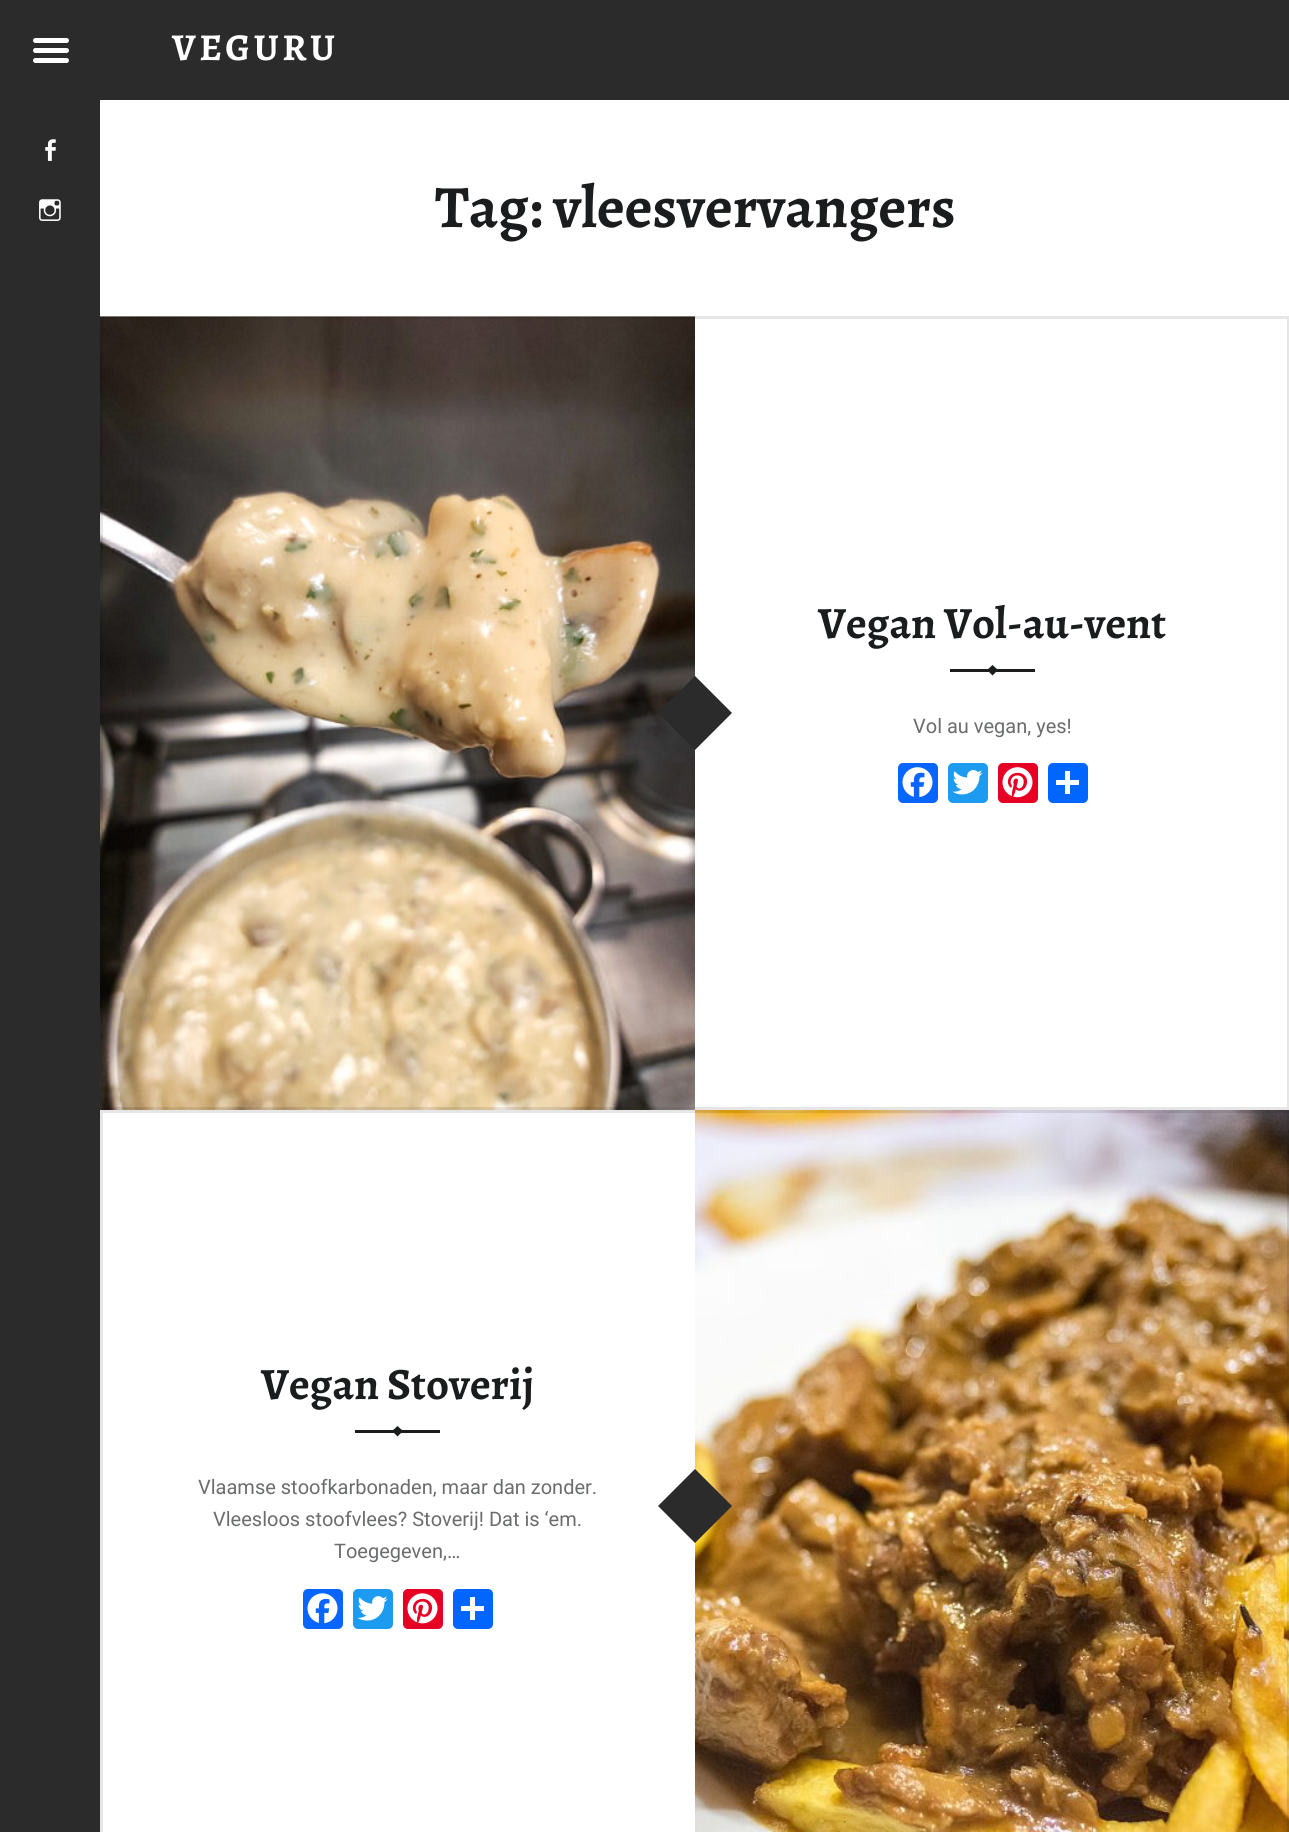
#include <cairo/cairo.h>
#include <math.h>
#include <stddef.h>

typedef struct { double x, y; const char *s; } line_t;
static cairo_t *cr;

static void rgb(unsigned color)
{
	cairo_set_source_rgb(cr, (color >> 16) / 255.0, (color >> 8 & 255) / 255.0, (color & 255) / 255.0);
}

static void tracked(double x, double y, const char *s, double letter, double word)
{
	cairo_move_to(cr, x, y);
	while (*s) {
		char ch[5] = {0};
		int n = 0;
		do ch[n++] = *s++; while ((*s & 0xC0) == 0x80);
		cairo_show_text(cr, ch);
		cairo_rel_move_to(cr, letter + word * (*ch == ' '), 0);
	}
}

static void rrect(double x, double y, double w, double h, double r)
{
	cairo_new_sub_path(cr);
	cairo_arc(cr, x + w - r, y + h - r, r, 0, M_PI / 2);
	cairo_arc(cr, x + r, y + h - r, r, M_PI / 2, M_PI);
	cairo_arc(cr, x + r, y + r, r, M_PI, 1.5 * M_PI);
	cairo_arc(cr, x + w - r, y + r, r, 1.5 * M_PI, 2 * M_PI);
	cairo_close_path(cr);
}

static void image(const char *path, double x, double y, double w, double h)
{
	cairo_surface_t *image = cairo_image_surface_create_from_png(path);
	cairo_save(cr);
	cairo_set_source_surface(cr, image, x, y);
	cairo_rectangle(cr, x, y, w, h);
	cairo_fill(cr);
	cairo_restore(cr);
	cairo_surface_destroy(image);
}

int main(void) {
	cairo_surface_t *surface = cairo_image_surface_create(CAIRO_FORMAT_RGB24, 1289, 1832);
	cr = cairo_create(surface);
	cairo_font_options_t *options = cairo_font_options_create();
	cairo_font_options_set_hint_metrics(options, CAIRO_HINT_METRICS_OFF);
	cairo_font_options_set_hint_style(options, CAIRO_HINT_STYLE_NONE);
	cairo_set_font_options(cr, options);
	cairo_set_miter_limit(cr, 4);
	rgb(0xffffff);
	cairo_paint(cr);
	rgb(0x2b2b2b);
	cairo_rectangle(cr, 100, 0, 1189, 100);
	cairo_fill(cr);
	cairo_rectangle(cr, 0, 0, 100, 1832);
	cairo_fill(cr);
	rgb(0xffffff);
	rrect(33, 38, 36, 5, 2.5);
	cairo_fill(cr);
	rrect(33, 48, 36, 5, 2.5);
	cairo_fill(cr);
	rrect(33, 58, 36, 5, 2.5);
	cairo_fill(cr);
	image("img/1.png", 45, 139, 11, 22);
	image("img/2.png", 39, 199, 22, 22);
	image("img/3.png", 100, 316, 595, 794);
	rgb(0x2b2b2b);
	cairo_new_path(cr);
	cairo_move_to(cr, 695, 676);
	cairo_line_to(cr, 732, 713);
	cairo_line_to(cr, 695, 750);
	cairo_line_to(cr, 658, 713);
	cairo_close_path(cr);
	cairo_fill(cr);
	rgb(0x1a1c1e);
	cairo_rectangle(cr, 950, 669, 85, 3);
	cairo_fill(cr);
	cairo_new_path(cr);
	cairo_move_to(cr, 992.5, 665);
	cairo_line_to(cr, 998, 670);
	cairo_line_to(cr, 992.5, 675.5);
	cairo_line_to(cr, 987, 670);
	cairo_close_path(cr);
	cairo_fill(cr);
	rgb(0x0866ff);
	rrect(898, 763, 40, 40, 5);
	cairo_fill(cr);
	image("img/4.png", 902, 767, 31, 31);
	rgb(0x1d9bf0);
	rrect(948, 763, 40, 40, 5);
	cairo_fill(cr);
	image("img/5.png", 952, 770, 31, 25);
	rgb(0xe60023);
	rrect(998, 763, 40, 40, 5);
	cairo_fill(cr);
	image("img/6.png", 1002, 767, 31, 31);
	rgb(0x0166ff);
	rrect(1048, 763, 40, 40, 5);
	cairo_fill(cr);
	rgb(0xffffff);
	cairo_rectangle(cr, 1065, 771, 5, 23);
	cairo_fill(cr);
	cairo_rectangle(cr, 1056, 780, 23, 5);
	cairo_fill(cr);
	cairo_rectangle(cr, 101.5, 317.5, 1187, 791);
	cairo_set_source_rgba(cr, 0, 0, 0, 0.1);
	cairo_set_line_width(cr, 3);
	cairo_stroke(cr);
	rgb(0x1a1c1e);
	cairo_rectangle(cr, 355, 1430, 85, 3);
	cairo_fill(cr);
	cairo_new_path(cr);
	cairo_move_to(cr, 397.5, 1426);
	cairo_line_to(cr, 403, 1431);
	cairo_line_to(cr, 397.5, 1436.5);
	cairo_line_to(cr, 392, 1431);
	cairo_close_path(cr);
	cairo_fill(cr);
	rgb(0x0866ff);
	rrect(303, 1589, 40, 40, 5);
	cairo_fill(cr);
	image("img/7.png", 307, 1593, 31, 31);
	rgb(0x1d9bf0);
	rrect(353, 1589, 40, 40, 5);
	cairo_fill(cr);
	image("img/8.png", 357, 1596, 31, 25);
	rgb(0xe60023);
	rrect(403, 1589, 40, 40, 5);
	cairo_fill(cr);
	image("img/9.png", 407, 1593, 31, 31);
	rgb(0x0166ff);
	rrect(453, 1589, 40, 40, 5);
	cairo_fill(cr);
	rgb(0xffffff);
	cairo_rectangle(cr, 470, 1597, 5, 23);
	cairo_fill(cr);
	cairo_rectangle(cr, 461, 1606, 23, 5);
	cairo_fill(cr);
	image("img/10.png", 695, 1110, 594, 722);
	rgb(0x2b2b2b);
	cairo_new_path(cr);
	cairo_move_to(cr, 695, 1469);
	cairo_line_to(cr, 732, 1506);
	cairo_line_to(cr, 695, 1543);
	cairo_line_to(cr, 658, 1506);
	cairo_close_path(cr);
	cairo_fill(cr);
	cairo_rectangle(cr, 101.5, 1111.5, 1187, 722);
	cairo_set_source_rgba(cr, 0, 0, 0, 0.1);
	cairo_stroke(cr);
	cairo_select_font_face(cr, "Alegreya", CAIRO_FONT_SLANT_NORMAL, CAIRO_FONT_WEIGHT_BOLD);
	cairo_set_font_size(cr, 38);
	rgb(0xffffff);
	tracked(172, 60, "VEGURU", 3.5, 0);
	cairo_set_font_size(cr, 60);
	rgb(0x1a1c1e);
	cairo_move_to(cr, 435, 227);
	cairo_show_text(cr, "Tag: vleesvervangers");
	cairo_set_font_size(cr, 44.75);
	cairo_move_to(cr, 818, 638);
	cairo_show_text(cr, "Vegan Vol-au-vent");
	cairo_select_font_face(cr, "Roboto", CAIRO_FONT_SLANT_NORMAL, CAIRO_FONT_WEIGHT_NORMAL);
	cairo_set_font_size(cr, 20);
	rgb(0x6a6c6e);
	cairo_move_to(cr, 913, 733);
	cairo_show_text(cr, "Vol au vegan, yes!");
	cairo_select_font_face(cr, "Alegreya", CAIRO_FONT_SLANT_NORMAL, CAIRO_FONT_WEIGHT_BOLD);
	cairo_set_font_size(cr, 44.75);
	rgb(0x1a1c1e);
	cairo_move_to(cr, 261, 1399);
	cairo_show_text(cr, "Vegan Stoverij");
	cairo_select_font_face(cr, "Roboto", CAIRO_FONT_SLANT_NORMAL, CAIRO_FONT_WEIGHT_NORMAL);
	cairo_set_font_size(cr, 20);
	rgb(0x6a6c6e);
	{
		static const line_t items[] = {
			{198, 1494, "Vlaamse stoofkarbonaden, maar dan zonder."},
			{213, 1526, "Vleesloos stoofvlees? Stoverij! Dat is ‘em."},
			{334, 1558, "Toegegeven,…"},
		};
		for (size_t i = 0; i < sizeof items / sizeof *items; i++) {
			cairo_move_to(cr, items[i].x, items[i].y);
			cairo_show_text(cr, items[i].s);
		}
	}
	cairo_surface_write_to_png(surface, "page.png");
	cairo_font_options_destroy(options);
	cairo_destroy(cr);
	cairo_surface_destroy(surface);
	return 0;
}
